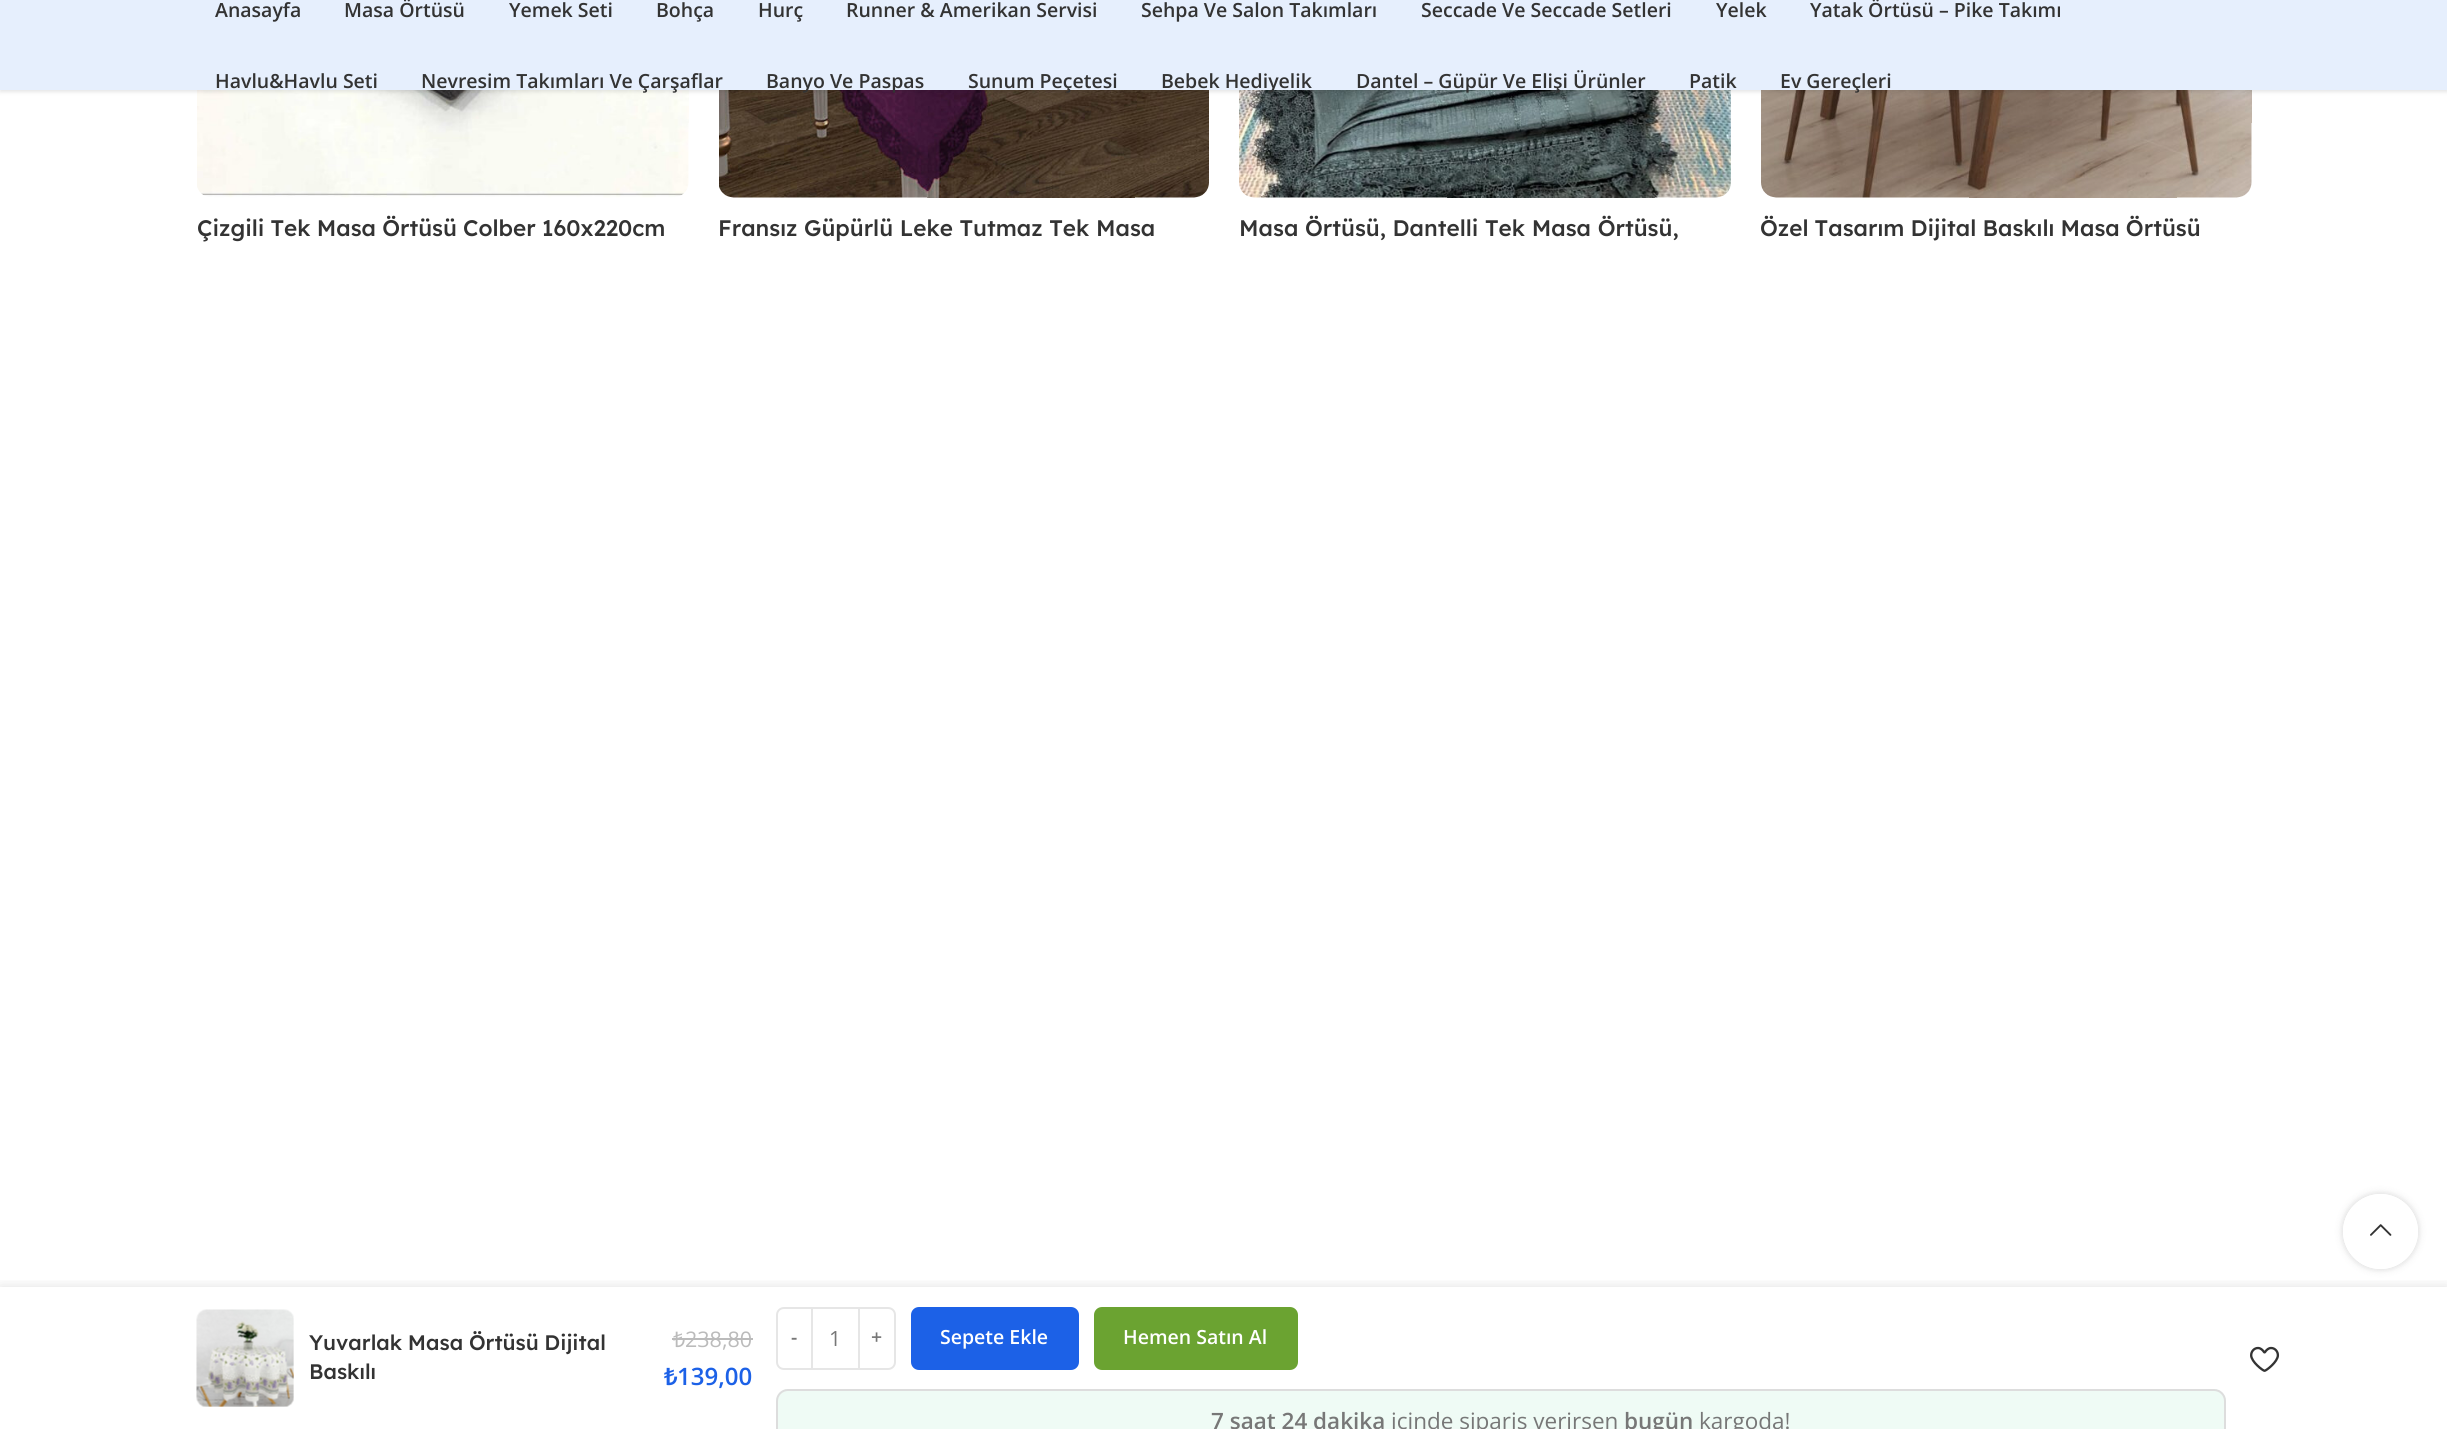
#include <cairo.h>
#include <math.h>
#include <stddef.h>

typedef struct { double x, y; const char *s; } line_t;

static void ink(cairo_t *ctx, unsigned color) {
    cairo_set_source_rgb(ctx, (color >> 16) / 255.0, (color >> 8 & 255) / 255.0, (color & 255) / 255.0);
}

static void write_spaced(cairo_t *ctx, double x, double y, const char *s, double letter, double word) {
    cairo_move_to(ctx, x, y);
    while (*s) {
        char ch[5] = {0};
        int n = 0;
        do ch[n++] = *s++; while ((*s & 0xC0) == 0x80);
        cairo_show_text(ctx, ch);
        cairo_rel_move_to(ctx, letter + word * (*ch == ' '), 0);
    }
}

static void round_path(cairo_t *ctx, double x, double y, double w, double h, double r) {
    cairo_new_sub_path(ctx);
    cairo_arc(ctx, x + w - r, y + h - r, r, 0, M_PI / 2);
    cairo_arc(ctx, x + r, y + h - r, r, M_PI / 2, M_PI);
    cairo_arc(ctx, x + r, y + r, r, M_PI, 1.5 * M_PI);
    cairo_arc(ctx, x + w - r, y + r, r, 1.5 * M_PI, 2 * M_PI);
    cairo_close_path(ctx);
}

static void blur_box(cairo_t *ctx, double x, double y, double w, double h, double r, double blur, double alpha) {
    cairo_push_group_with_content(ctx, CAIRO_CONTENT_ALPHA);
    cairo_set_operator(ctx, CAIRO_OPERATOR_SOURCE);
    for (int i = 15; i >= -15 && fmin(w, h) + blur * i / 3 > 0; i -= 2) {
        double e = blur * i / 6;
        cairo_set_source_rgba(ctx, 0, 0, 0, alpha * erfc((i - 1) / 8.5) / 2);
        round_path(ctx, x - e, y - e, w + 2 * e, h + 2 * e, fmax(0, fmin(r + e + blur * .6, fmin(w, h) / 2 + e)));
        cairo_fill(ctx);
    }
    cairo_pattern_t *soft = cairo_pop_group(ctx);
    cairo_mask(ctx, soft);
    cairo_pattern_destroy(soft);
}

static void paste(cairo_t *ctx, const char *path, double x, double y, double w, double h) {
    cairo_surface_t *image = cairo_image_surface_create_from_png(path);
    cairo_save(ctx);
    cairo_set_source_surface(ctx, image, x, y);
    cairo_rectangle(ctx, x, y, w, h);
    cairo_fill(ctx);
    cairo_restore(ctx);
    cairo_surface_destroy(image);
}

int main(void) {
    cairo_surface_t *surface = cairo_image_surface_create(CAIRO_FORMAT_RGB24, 2447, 1429);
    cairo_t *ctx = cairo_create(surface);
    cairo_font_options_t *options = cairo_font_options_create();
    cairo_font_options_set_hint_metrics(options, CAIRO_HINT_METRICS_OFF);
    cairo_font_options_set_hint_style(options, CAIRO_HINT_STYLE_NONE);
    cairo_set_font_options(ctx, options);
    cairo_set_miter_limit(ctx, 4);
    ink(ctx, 0xFFFFFF);
    cairo_paint(ctx);
    paste(ctx, "media/1.png", 197, 90, 492, 108);
    paste(ctx, "media/2.png", 719, 90, 490, 108);
    paste(ctx, "media/3.png", 1239, 90, 492, 108);
    paste(ctx, "media/4.png", 1761, 90, 491, 108);
    ink(ctx, 0x000000);
    blur_box(ctx, 0, 2, 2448, 90, 0, 2, 0.1);
    ink(ctx, 0xE6EFFD);
    cairo_rectangle(ctx, 0, 0, 2447, 90);
    cairo_fill(ctx);
    cairo_select_font_face(ctx, "Open Sans SemiBold", CAIRO_FONT_SLANT_NORMAL, CAIRO_FONT_WEIGHT_NORMAL);
    cairo_set_font_size(ctx, 19.5);
    ink(ctx, 0x333333);
    {
        static const line_t items[] = {
            {215, 17, "Anasayfa"},
            {344, 17, "Masa Örtüsü"},
            {509, 17, "Yemek Seti"},
            {656, 17, "Bohça"},
            {758, 17, "Hurç"},
            {846, 17, "Runner & Amerikan Servisi"},
            {1141, 17, "Sehpa Ve Salon Takımları"},
            {1421, 17, "Seccade Ve Seccade Setleri"},
            {1716, 17, "Yelek"},
            {1810, 17, "Yatak Örtüsü – Pike Takımı"},
            {215, 88, "Havlu&Havlu Seti"},
            {421, 88, "Nevresim Takımları Ve Çarşaflar"},
            {766, 88, "Banyo Ve Paspas"},
            {968, 88, "Sunum Peçetesi"},
            {1161, 88, "Bebek Hediyelik"},
            {1356, 88, "Dantel – Güpür Ve Elişi Ürünler"},
            {1689, 88, "Patik"},
            {1780, 88, "Ev Gereçleri"},
        };
        for (size_t i = 0; i < sizeof items / sizeof *items; i++) {
            cairo_move_to(ctx, items[i].x, items[i].y);
            cairo_show_text(ctx, items[i].s);
        }
    }
    cairo_select_font_face(ctx, "Lexend Deca Medium", CAIRO_FONT_SLANT_NORMAL, CAIRO_FONT_WEIGHT_NORMAL);
    cairo_set_font_size(ctx, 22.5);
    write_spaced(ctx, 197, 236, "Çizgili Tek Masa Örtüsü Colber 160x220cm", 0, -0.5);
    cairo_move_to(ctx, 718, 236);
    cairo_show_text(ctx, "Fransız Güpürlü Leke Tutmaz Tek Masa");
    cairo_move_to(ctx, 1239, 236);
    cairo_show_text(ctx, "Masa Örtüsü, Dantelli Tek Masa Örtüsü,");
    write_spaced(ctx, 1760, 236, "Özel Tasarım Dijital Baskılı Masa Örtüsü", 0, -0.5);
    cairo_save(ctx);
    cairo_set_fill_rule(ctx, CAIRO_FILL_RULE_EVEN_ODD);
    cairo_new_path(ctx);
    cairo_move_to(ctx, 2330, 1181);
    cairo_line_to(ctx, 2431, 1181);
    cairo_line_to(ctx, 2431, 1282);
    cairo_line_to(ctx, 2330, 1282);
    cairo_close_path(ctx);
    cairo_move_to(ctx, 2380.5, 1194);
    cairo_curve_to(ctx, 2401, 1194, 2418, 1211, 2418, 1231.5);
    cairo_curve_to(ctx, 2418, 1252, 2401, 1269, 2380.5, 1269);
    cairo_curve_to(ctx, 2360, 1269, 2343, 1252, 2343, 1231.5);
    cairo_curve_to(ctx, 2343, 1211, 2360, 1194, 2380.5, 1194);
    cairo_close_path(ctx);
    cairo_clip(ctx);
    ink(ctx, 0x000000);
    blur_box(ctx, 2343, 1194, 75, 75, 37.5, 4, 0.17);
    cairo_restore(ctx);
    cairo_save(ctx);
    cairo_rectangle(ctx, 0, 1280, 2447, 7);
    cairo_clip(ctx);
    ink(ctx, 0x000000);
    blur_box(ctx, 0, 1287, 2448, 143, 0, 7, 0.12);
    cairo_restore(ctx);
    cairo_set_source_rgba(ctx, 1, 1, 1, 0.9);
    cairo_arc(ctx, 2380.5, 1231.5, 37.5, 0, 2 * M_PI);
    cairo_fill(ctx);
    paste(ctx, "media/5.png", 2370, 1224, 22, 12);
    paste(ctx, "media/6.png", 196, 1309, 98, 98);
    cairo_set_font_size(ctx, 21);
    ink(ctx, 0x333333);
    write_spaced(ctx, 309, 1350, "Yuvarlak Masa Örtüsü Dijital", 0, -0.5);
    cairo_move_to(ctx, 309, 1379);
    cairo_show_text(ctx, "Baskılı");
    cairo_select_font_face(ctx, "Noto Sans", CAIRO_FONT_SLANT_NORMAL, CAIRO_FONT_WEIGHT_NORMAL);
    cairo_set_font_size(ctx, 21.5);
    ink(ctx, 0xBBBBBB);
    cairo_move_to(ctx, 673, 1347);
    cairo_show_text(ctx, "₺");
    cairo_rectangle(ctx, 672, 1338, 14, 2);
    cairo_fill(ctx);
    cairo_rectangle(ctx, 686, 1338, 67, 2);
    cairo_fill(ctx);
    cairo_select_font_face(ctx, "Open Sans", CAIRO_FONT_SLANT_NORMAL, CAIRO_FONT_WEIGHT_NORMAL);
    cairo_move_to(ctx, 685, 1347);
    cairo_show_text(ctx, "238,80");
    cairo_select_font_face(ctx, "Noto Sans SemiBold", CAIRO_FONT_SLANT_NORMAL, CAIRO_FONT_WEIGHT_NORMAL);
    cairo_set_font_size(ctx, 24);
    ink(ctx, 0x1C61E7);
    cairo_move_to(ctx, 664, 1385);
    cairo_show_text(ctx, "₺");
    cairo_select_font_face(ctx, "Open Sans SemiBold", CAIRO_FONT_SLANT_NORMAL, CAIRO_FONT_WEIGHT_NORMAL);
    cairo_move_to(ctx, 677, 1385);
    cairo_show_text(ctx, "139,00");
    cairo_new_path(ctx);
    cairo_move_to(ctx, 784, 1308);
    cairo_line_to(ctx, 812, 1308);
    cairo_line_to(ctx, 812, 1369);
    cairo_line_to(ctx, 784, 1369);
    cairo_curve_to(ctx, 780, 1369, 777, 1366, 777, 1362);
    cairo_line_to(ctx, 777, 1315);
    cairo_curve_to(ctx, 777, 1311, 780, 1308, 784, 1308);
    cairo_close_path(ctx);
    ink(ctx, 0xE6E6E6);
    cairo_stroke(ctx);
    cairo_set_font_size(ctx, 19.5);
    ink(ctx, 0x777777);
    cairo_move_to(ctx, 791, 1344);
    cairo_show_text(ctx, "-");
    ink(ctx, 0xE6E6E6);
    cairo_rectangle(ctx, 813, 1307, 45, 2);
    cairo_fill(ctx);
    cairo_rectangle(ctx, 813, 1368, 45, 2);
    cairo_fill(ctx);
    cairo_select_font_face(ctx, "Open Sans", CAIRO_FONT_SLANT_NORMAL, CAIRO_FONT_WEIGHT_NORMAL);
    cairo_set_font_size(ctx, 21);
    ink(ctx, 0x777777);
    cairo_move_to(ctx, 829, 1346);
    cairo_show_text(ctx, "1");
    cairo_new_path(ctx);
    cairo_move_to(ctx, 859, 1308);
    cairo_line_to(ctx, 888, 1308);
    cairo_curve_to(ctx, 892, 1308, 895, 1311, 895, 1315);
    cairo_line_to(ctx, 895, 1362);
    cairo_curve_to(ctx, 895, 1366, 892, 1369, 888, 1369);
    cairo_line_to(ctx, 859, 1369);
    cairo_close_path(ctx);
    ink(ctx, 0xE6E6E6);
    cairo_stroke(ctx);
    cairo_select_font_face(ctx, "Open Sans SemiBold", CAIRO_FONT_SLANT_NORMAL, CAIRO_FONT_WEIGHT_NORMAL);
    cairo_set_font_size(ctx, 19.5);
    ink(ctx, 0x777777);
    cairo_move_to(ctx, 871, 1344);
    cairo_show_text(ctx, "+");
    ink(ctx, 0x1C61E7);
    round_path(ctx, 911, 1307, 168, 63, 8);
    cairo_fill(ctx);
    ink(ctx, 0xFFFFFF);
    cairo_move_to(ctx, 940, 1344);
    cairo_show_text(ctx, "Sepete Ekle");
    ink(ctx, 0x6BA331);
    round_path(ctx, 1094, 1307, 204, 63, 8);
    cairo_fill(ctx);
    ink(ctx, 0xFFFFFF);
    cairo_move_to(ctx, 1123, 1344);
    cairo_show_text(ctx, "Hemen Satın Al");
    ink(ctx, 0xEFFBF5);
    cairo_new_path(ctx);
    cairo_move_to(ctx, 788, 1389);
    cairo_line_to(ctx, 2214, 1389);
    cairo_curve_to(ctx, 2220.5, 1389, 2226, 1394.5, 2226, 1401);
    cairo_line_to(ctx, 2226, 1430);
    cairo_line_to(ctx, 776, 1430);
    cairo_line_to(ctx, 776, 1401);
    cairo_curve_to(ctx, 776, 1394.5, 781.5, 1389, 788, 1389);
    cairo_close_path(ctx);
    cairo_fill(ctx);
    round_path(ctx, 777, 1390, 1448, 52, 11);
    ink(ctx, 0xDDDDDD);
    cairo_stroke(ctx);
    cairo_set_font_size(ctx, 22.5);
    ink(ctx, 0x777777);
    cairo_move_to(ctx, 1211, 1429);
    cairo_show_text(ctx, "7 saat 24 dakika");
    cairo_select_font_face(ctx, "Open Sans", CAIRO_FONT_SLANT_NORMAL, CAIRO_FONT_WEIGHT_NORMAL);
    cairo_move_to(ctx, 1391, 1429);
    cairo_show_text(ctx, "içinde sipariş verirsen");
    cairo_select_font_face(ctx, "Open Sans SemiBold", CAIRO_FONT_SLANT_NORMAL, CAIRO_FONT_WEIGHT_NORMAL);
    cairo_move_to(ctx, 1624, 1429);
    cairo_show_text(ctx, "bugün");
    cairo_select_font_face(ctx, "Open Sans", CAIRO_FONT_SLANT_NORMAL, CAIRO_FONT_WEIGHT_NORMAL);
    cairo_move_to(ctx, 1699, 1429);
    cairo_show_text(ctx, "kargoda!");
    paste(ctx, "media/7.png", 2250, 1346, 30, 26);
    cairo_surface_write_to_png(surface, "image.png");
    cairo_font_options_destroy(options);
    cairo_destroy(ctx);
    cairo_surface_destroy(surface);
    return 0;
}
